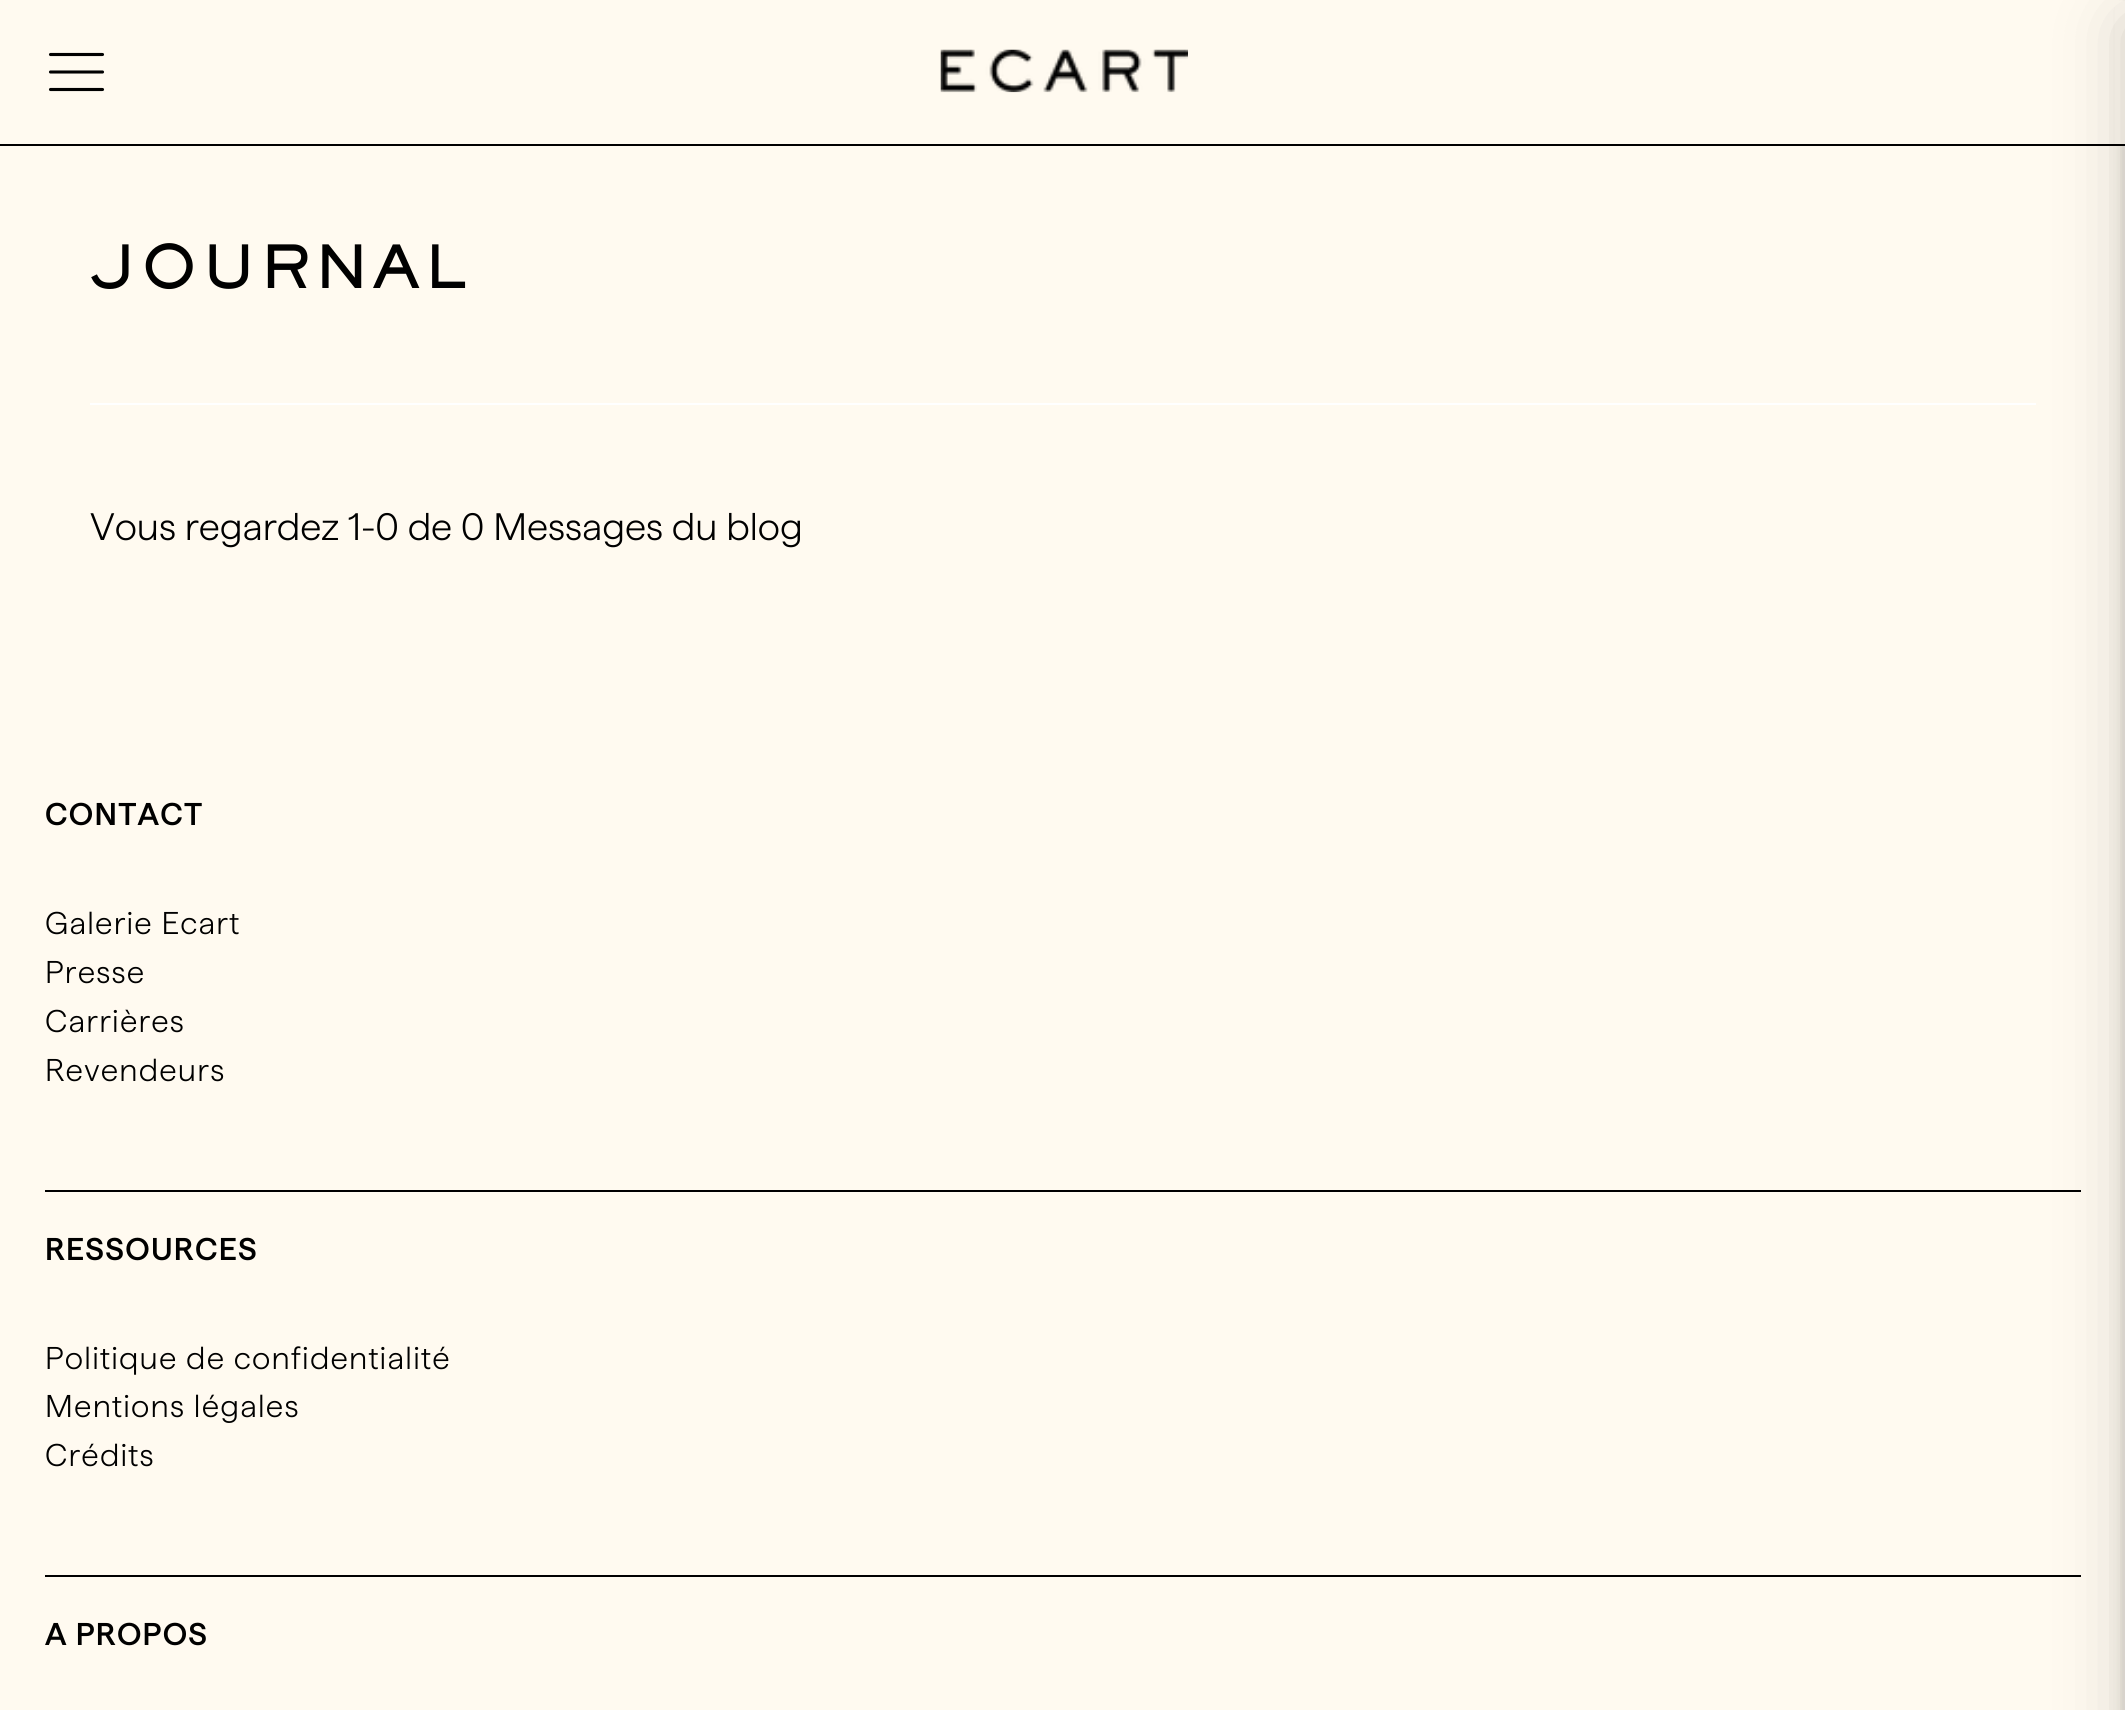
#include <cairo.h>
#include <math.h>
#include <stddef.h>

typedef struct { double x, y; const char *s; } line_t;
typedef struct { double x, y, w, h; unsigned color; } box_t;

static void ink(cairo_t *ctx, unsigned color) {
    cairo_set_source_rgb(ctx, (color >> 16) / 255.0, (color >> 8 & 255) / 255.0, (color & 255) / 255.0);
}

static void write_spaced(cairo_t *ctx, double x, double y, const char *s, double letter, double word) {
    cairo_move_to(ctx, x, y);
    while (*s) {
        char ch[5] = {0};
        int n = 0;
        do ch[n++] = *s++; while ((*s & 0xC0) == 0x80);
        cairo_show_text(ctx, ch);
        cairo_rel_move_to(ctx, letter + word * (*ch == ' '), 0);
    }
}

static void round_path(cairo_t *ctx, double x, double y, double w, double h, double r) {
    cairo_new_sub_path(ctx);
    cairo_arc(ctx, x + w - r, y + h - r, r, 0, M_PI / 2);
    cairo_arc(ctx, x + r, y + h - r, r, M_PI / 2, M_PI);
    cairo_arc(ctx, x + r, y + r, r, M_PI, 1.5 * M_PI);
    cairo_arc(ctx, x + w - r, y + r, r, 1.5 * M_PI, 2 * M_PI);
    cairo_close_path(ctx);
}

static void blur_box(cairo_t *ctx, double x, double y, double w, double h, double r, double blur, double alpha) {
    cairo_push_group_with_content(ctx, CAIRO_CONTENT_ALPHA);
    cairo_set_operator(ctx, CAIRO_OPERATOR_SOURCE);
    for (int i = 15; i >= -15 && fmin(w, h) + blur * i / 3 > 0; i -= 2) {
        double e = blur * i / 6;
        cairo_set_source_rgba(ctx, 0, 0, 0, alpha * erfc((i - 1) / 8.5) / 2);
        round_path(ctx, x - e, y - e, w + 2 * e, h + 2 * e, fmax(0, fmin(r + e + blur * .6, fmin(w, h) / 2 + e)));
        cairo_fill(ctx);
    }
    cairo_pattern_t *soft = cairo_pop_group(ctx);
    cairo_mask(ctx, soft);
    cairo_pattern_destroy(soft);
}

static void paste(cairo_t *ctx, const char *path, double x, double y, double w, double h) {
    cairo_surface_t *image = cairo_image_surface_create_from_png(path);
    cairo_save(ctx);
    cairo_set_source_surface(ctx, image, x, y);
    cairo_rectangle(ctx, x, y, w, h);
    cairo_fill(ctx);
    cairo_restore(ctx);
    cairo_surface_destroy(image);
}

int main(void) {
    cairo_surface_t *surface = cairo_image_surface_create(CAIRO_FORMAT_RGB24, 2125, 1710);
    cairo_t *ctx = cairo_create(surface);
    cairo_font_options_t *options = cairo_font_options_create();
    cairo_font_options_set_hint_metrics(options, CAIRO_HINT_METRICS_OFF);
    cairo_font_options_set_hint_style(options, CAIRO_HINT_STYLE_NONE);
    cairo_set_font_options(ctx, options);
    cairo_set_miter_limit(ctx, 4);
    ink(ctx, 0xFFFAF0);
    cairo_paint(ctx);
    ink(ctx, 0x000000);
    blur_box(ctx, 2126, 9, 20, 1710, 0, 7, 0.1);
    blur_box(ctx, 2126, 9, 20, 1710, 0, 7, 0.1);
    {
        static const box_t items[] = {
            {2115, 1, 10, 143, 0xFFFAF0},
            {0, 144, 2125, 2, 0x000000},
            {90, 403, 1946, 2, 0xFFFFFF},
            {45, 1190, 2036, 2, 0x000000},
            {45, 1575, 2036, 2, 0x000000},
        };
        for (size_t i = 0; i < sizeof items / sizeof *items; i++) {
            ink(ctx, items[i].color);
            cairo_rectangle(ctx, items[i].x, items[i].y, items[i].w, items[i].h);
            cairo_fill(ctx);
        }
    }
    ink(ctx, 0x000000);
    blur_box(ctx, 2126, 23, 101, 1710, 0, 34, 0.18);
    cairo_new_path(ctx);
    cairo_move_to(ctx, 50.5, 72);
    cairo_line_to(ctx, 102.5, 72);
    cairo_move_to(ctx, 50.5, 54.5);
    cairo_line_to(ctx, 102.5, 54.5);
    cairo_move_to(ctx, 50.5, 89.5);
    cairo_line_to(ctx, 102.5, 89.5);
    ink(ctx, 0x000000);
    cairo_set_line_width(ctx, 3.1);
    cairo_set_line_cap(ctx, CAIRO_LINE_CAP_ROUND);
    cairo_set_line_join(ctx, CAIRO_LINE_JOIN_ROUND);
    cairo_stroke(ctx);
    paste(ctx, "media/1.png", 940, 49, 248, 44);
    cairo_select_font_face(ctx, "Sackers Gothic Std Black", CAIRO_FONT_SLANT_NORMAL, CAIRO_FONT_WEIGHT_NORMAL);
    cairo_set_font_size(ctx, 58.5);
    write_spaced(ctx, 90, 288, "JOURNAL", 2.25, 0);
    cairo_select_font_face(ctx, "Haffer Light", CAIRO_FONT_SLANT_NORMAL, CAIRO_FONT_WEIGHT_NORMAL);
    cairo_set_font_size(ctx, 38.25);
    cairo_move_to(ctx, 90, 540);
    cairo_show_text(ctx, "Vous regardez 1-0 de 0 Messages du blog");
    cairo_select_font_face(ctx, "Haffer Medium", CAIRO_FONT_SLANT_NORMAL, CAIRO_FONT_WEIGHT_NORMAL);
    cairo_set_font_size(ctx, 31.5);
    write_spaced(ctx, 45, 825, "CONTACT", 1.25, 0);
    cairo_select_font_face(ctx, "Haffer Light", CAIRO_FONT_SLANT_NORMAL, CAIRO_FONT_WEIGHT_NORMAL);
    {
        static const line_t items[] = {
            {45, 934, "Galerie Ecart"},
            {45, 983, "Presse"},
            {45, 1032, "Carrières"},
            {45, 1081, "Revendeurs"},
        };
        for (size_t i = 0; i < sizeof items / sizeof *items; i++) {
            write_spaced(ctx, items[i].x, items[i].y, items[i].s, 1.25, 0);
        }
    }
    cairo_select_font_face(ctx, "Haffer Medium", CAIRO_FONT_SLANT_NORMAL, CAIRO_FONT_WEIGHT_NORMAL);
    write_spaced(ctx, 45, 1260, "RESSOURCES", 1.25, 0);
    cairo_select_font_face(ctx, "Haffer Light", CAIRO_FONT_SLANT_NORMAL, CAIRO_FONT_WEIGHT_NORMAL);
    {
        static const line_t items[] = {
            {45, 1369, "Politique de confidentialité"},
            {45, 1417, "Mentions légales"},
            {45, 1466, "Crédits"},
        };
        for (size_t i = 0; i < sizeof items / sizeof *items; i++) {
            write_spaced(ctx, items[i].x, items[i].y, items[i].s, 1.25, 0);
        }
    }
    cairo_select_font_face(ctx, "Haffer Medium", CAIRO_FONT_SLANT_NORMAL, CAIRO_FONT_WEIGHT_NORMAL);
    write_spaced(ctx, 45, 1645, "A PROPOS", 1.25, 0);
    cairo_surface_write_to_png(surface, "image.png");
    cairo_font_options_destroy(options);
    cairo_destroy(ctx);
    cairo_surface_destroy(surface);
    return 0;
}
